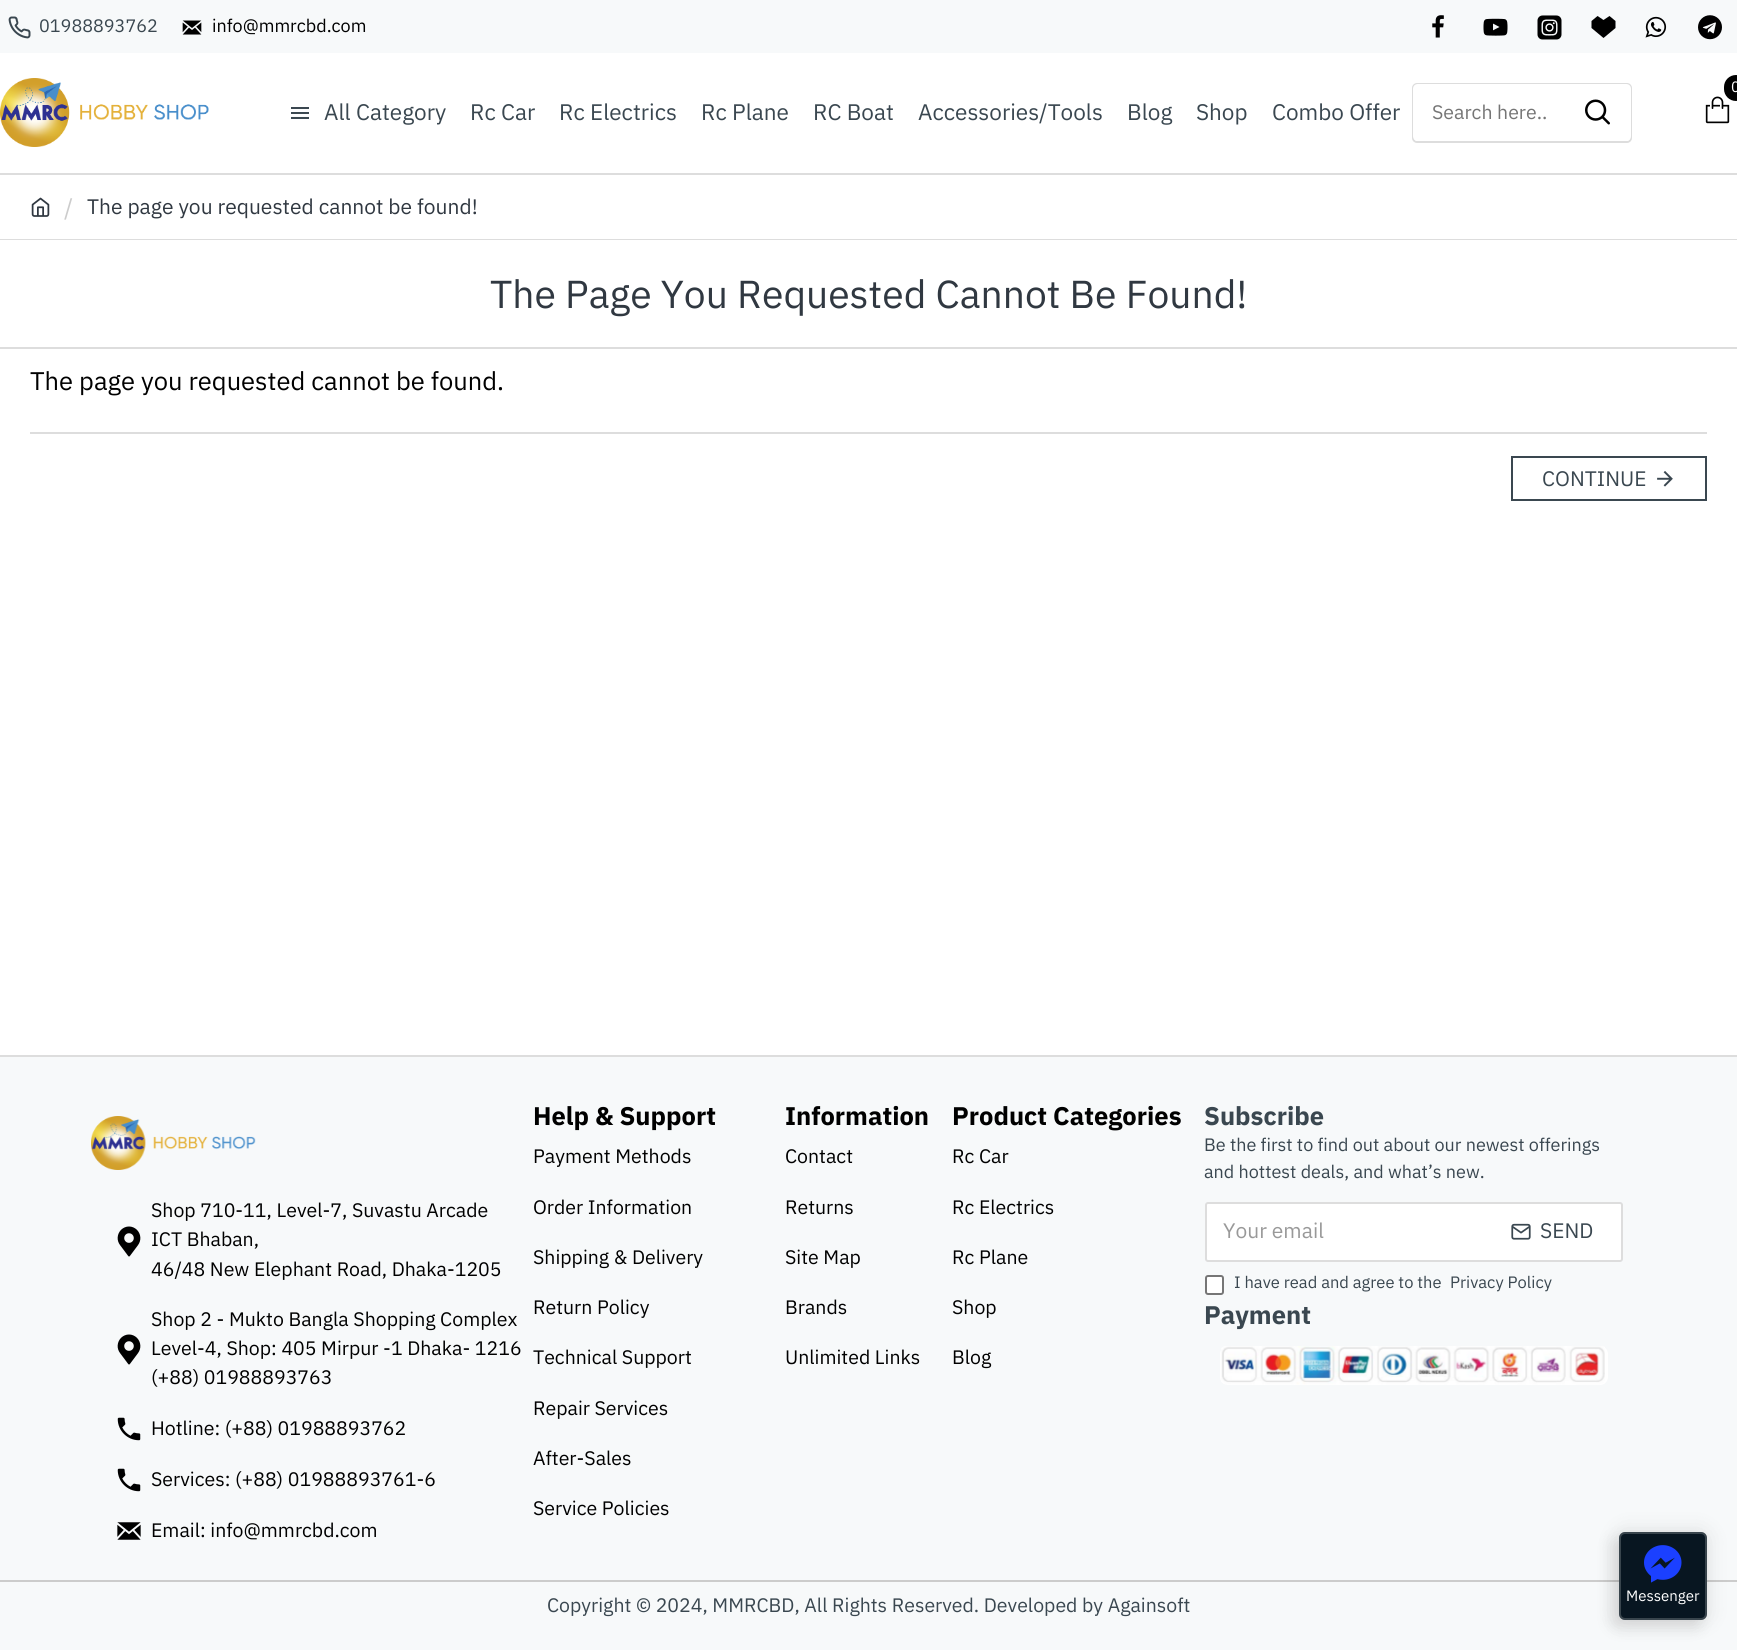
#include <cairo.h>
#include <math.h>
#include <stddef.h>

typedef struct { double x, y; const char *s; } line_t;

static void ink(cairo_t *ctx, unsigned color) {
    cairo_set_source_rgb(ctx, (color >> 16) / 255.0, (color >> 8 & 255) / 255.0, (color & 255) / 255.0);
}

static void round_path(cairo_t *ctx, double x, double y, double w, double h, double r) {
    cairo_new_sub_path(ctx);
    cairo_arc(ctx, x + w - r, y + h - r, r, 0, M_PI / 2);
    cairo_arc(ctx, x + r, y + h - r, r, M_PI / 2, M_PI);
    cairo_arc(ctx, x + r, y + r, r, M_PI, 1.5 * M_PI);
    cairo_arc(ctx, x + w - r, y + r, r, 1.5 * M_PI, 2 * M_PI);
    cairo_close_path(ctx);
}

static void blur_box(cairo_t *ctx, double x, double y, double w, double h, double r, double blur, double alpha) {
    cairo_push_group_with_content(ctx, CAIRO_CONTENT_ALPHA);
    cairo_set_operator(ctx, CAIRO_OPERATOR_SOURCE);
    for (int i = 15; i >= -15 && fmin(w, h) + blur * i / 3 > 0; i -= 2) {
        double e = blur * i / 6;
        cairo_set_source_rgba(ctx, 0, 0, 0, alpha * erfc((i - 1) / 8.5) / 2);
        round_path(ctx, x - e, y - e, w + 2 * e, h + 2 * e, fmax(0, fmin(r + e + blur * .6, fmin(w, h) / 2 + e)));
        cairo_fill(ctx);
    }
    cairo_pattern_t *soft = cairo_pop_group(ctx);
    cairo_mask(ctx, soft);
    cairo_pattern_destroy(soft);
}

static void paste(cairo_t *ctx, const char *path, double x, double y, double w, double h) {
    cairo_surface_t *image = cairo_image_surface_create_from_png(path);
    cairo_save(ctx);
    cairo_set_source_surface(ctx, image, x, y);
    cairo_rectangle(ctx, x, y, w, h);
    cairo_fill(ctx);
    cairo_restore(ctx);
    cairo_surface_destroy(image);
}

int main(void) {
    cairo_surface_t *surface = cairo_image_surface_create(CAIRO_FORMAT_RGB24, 1737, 1650);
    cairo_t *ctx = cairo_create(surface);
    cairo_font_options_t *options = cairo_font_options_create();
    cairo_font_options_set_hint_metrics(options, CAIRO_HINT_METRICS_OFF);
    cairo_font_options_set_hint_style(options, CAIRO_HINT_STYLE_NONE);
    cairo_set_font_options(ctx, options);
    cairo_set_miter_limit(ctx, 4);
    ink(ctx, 0xFFFFFF);
    cairo_paint(ctx);
    ink(ctx, 0xDDDDDD);
    cairo_rectangle(ctx, 0, 173, 1737, 2);
    cairo_fill(ctx);
    ink(ctx, 0xF7F9FA);
    cairo_rectangle(ctx, 0, 0, 1737, 53);
    cairo_fill(ctx);
    paste(ctx, "media/1.png", 8, 16, 23, 23);
    cairo_select_font_face(ctx, "IBM Plex Sans", CAIRO_FONT_SLANT_NORMAL, CAIRO_FONT_WEIGHT_NORMAL);
    cairo_set_font_size(ctx, 18);
    ink(ctx, 0x3A4750);
    cairo_move_to(ctx, 39, 32);
    cairo_show_text(ctx, "01988893762");
    paste(ctx, "media/2.png", 182, 20, 20, 15);
    ink(ctx, 0x000000);
    cairo_move_to(ctx, 212, 32);
    cairo_show_text(ctx, "info@mmrcbd.com");
    paste(ctx, "media/3.png", 1432, 15, 12, 23);
    paste(ctx, "media/4.png", 1483, 18, 25, 18);
    paste(ctx, "media/5.png", 1537, 15, 25, 25);
    cairo_new_path(ctx);
    cairo_move_to(ctx, 1609.5, 16);
    cairo_line_to(ctx, 1603.5, 20);
    cairo_line_to(ctx, 1597.5, 16);
    cairo_line_to(ctx, 1591.5, 21);
    cairo_line_to(ctx, 1591.5, 28);
    cairo_line_to(ctx, 1603.5, 38);
    cairo_line_to(ctx, 1615.5, 28);
    cairo_line_to(ctx, 1615.5, 21);
    cairo_close_path(ctx);
    cairo_fill(ctx);
    paste(ctx, "media/6.png", 1645, 16, 22, 22);
    paste(ctx, "media/7.png", 1698, 15, 24, 25);
    paste(ctx, "media/8.png", 0, 78, 209, 69);
    paste(ctx, "media/9.png", 1705, 96, 25, 28);
    round_path(ctx, 1724, 75, 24, 26, 12);
    cairo_fill(ctx);
    cairo_set_font_size(ctx, 15);
    ink(ctx, 0xFFFFFF);
    cairo_move_to(ctx, 1731, 92);
    cairo_show_text(ctx, "0");
    paste(ctx, "media/10.png", 291, 107, 18, 12);
    cairo_set_font_size(ctx, 22.5);
    ink(ctx, 0x3A4750);
    {
        static const line_t items[] = {
            {324, 120, "All Category"},
            {470, 120, "Rc Car"},
            {559, 120, "Rc Electrics"},
            {701, 120, "Rc Plane"},
            {813, 120, "RC Boat"},
            {918, 120, "Accessories/Tools"},
            {1127, 120, "Blog"},
            {1196, 120, "Shop"},
            {1272, 120, "Combo Offer"},
        };
        for (size_t i = 0; i < sizeof items / sizeof *items; i++) {
            cairo_move_to(ctx, items[i].x, items[i].y);
            cairo_show_text(ctx, items[i].s);
        }
    }
    round_path(ctx, 1413, 84, 218, 58, 4);
    ink(ctx, 0xDDDDDD);
    cairo_stroke(ctx);
    ink(ctx, 0xFFFFFF);
    cairo_new_path(ctx);
    cairo_move_to(ctx, 1418, 84);
    cairo_line_to(ctx, 1563, 84);
    cairo_line_to(ctx, 1563, 141);
    cairo_line_to(ctx, 1418, 141);
    cairo_curve_to(ctx, 1415, 141, 1413, 139, 1413, 136);
    cairo_line_to(ctx, 1413, 89);
    cairo_curve_to(ctx, 1413, 86, 1415, 84, 1418, 84);
    cairo_close_path(ctx);
    cairo_fill(ctx);
    cairo_set_font_size(ctx, 19.5);
    ink(ctx, 0x757575);
    cairo_move_to(ctx, 1432, 119);
    cairo_show_text(ctx, "Search here..");
    ink(ctx, 0xFFFFFF);
    cairo_new_path(ctx);
    cairo_move_to(ctx, 1563, 84);
    cairo_line_to(ctx, 1626, 84);
    cairo_curve_to(ctx, 1629, 84, 1631, 86, 1631, 89);
    cairo_line_to(ctx, 1631, 136);
    cairo_curve_to(ctx, 1631, 139, 1629, 141, 1626, 141);
    cairo_line_to(ctx, 1563, 141);
    cairo_close_path(ctx);
    cairo_fill(ctx);
    paste(ctx, "media/11.png", 1585, 99, 25, 26);
    paste(ctx, "media/12.png", 31, 197, 19, 20);
    cairo_set_font_size(ctx, 24);
    ink(ctx, 0xCCCCCC);
    cairo_move_to(ctx, 64, 216);
    cairo_show_text(ctx, "/");
    cairo_set_font_size(ctx, 21);
    ink(ctx, 0x303841);
    cairo_move_to(ctx, 87, 214);
    cairo_show_text(ctx, "The page you requested cannot be found!");
    ink(ctx, 0xDDDDDD);
    cairo_rectangle(ctx, 0, 239, 1737, 1);
    cairo_fill(ctx);
    cairo_rectangle(ctx, 0, 347, 1737, 2);
    cairo_fill(ctx);
    cairo_set_font_size(ctx, 39);
    ink(ctx, 0x303841);
    cairo_move_to(ctx, 490, 308);
    cairo_show_text(ctx, "The Page You Requested Cannot Be Found!");
    cairo_set_font_size(ctx, 25.5);
    ink(ctx, 0x000000);
    cairo_move_to(ctx, 30, 390);
    cairo_show_text(ctx, "The page you requested cannot be found.");
    ink(ctx, 0xDDDDDD);
    cairo_rectangle(ctx, 30, 432, 1677, 2);
    cairo_fill(ctx);
    cairo_rectangle(ctx, 1512, 457, 194, 43);
    ink(ctx, 0x3A4750);
    cairo_stroke(ctx);
    cairo_set_font_size(ctx, 21);
    cairo_move_to(ctx, 1542, 486);
    cairo_show_text(ctx, "CONTINUE");
    paste(ctx, "media/13.png", 1657, 471, 16, 16);
    ink(ctx, 0xF7F9FA);
    cairo_rectangle(ctx, 0, 1057, 1737, 593);
    cairo_fill(ctx);
    ink(ctx, 0xDDDDDD);
    cairo_rectangle(ctx, 0, 1055, 1737, 2);
    cairo_fill(ctx);
    paste(ctx, "media/14.png", 91, 1116, 165, 54);
    paste(ctx, "media/15.png", 117, 1226, 24, 31);
    cairo_set_font_size(ctx, 19.5);
    ink(ctx, 0x000000);
    {
        static const line_t items[] = {
            {151, 1217, "Shop 710-11, Level-7, Suvastu Arcade"},
            {151, 1246, "ICT Bhaban,"},
            {151, 1276, "46/48 New Elephant Road, Dhaka-1205"},
        };
        for (size_t i = 0; i < sizeof items / sizeof *items; i++) {
            cairo_move_to(ctx, items[i].x, items[i].y);
            cairo_show_text(ctx, items[i].s);
        }
    }
    paste(ctx, "media/15.png", 117, 1334, 24, 31);
    {
        static const line_t items[] = {
            {151, 1326, "Shop 2 - Mukto Bangla Shopping Complex"},
            {151, 1355, "Level-4, Shop: 405 Mirpur -1 Dhaka- 1216"},
            {151, 1384, "(+88) 01988893763"},
        };
        for (size_t i = 0; i < sizeof items / sizeof *items; i++) {
            cairo_move_to(ctx, items[i].x, items[i].y);
            cairo_show_text(ctx, items[i].s);
        }
    }
    paste(ctx, "media/16.png", 117, 1417, 24, 24);
    cairo_move_to(ctx, 151, 1435);
    cairo_show_text(ctx, "Hotline: (+88) 01988893762");
    paste(ctx, "media/16.png", 117, 1468, 24, 24);
    cairo_move_to(ctx, 151, 1486);
    cairo_show_text(ctx, "Services: (+88) 01988893761-6");
    paste(ctx, "media/17.png", 117, 1522, 24, 18);
    cairo_move_to(ctx, 151, 1537);
    cairo_show_text(ctx, "Email: info@mmrcbd.com");
    cairo_select_font_face(ctx, "IBM Plex Sans", CAIRO_FONT_SLANT_NORMAL, CAIRO_FONT_WEIGHT_BOLD);
    cairo_set_font_size(ctx, 25.5);
    cairo_move_to(ctx, 533, 1125);
    cairo_show_text(ctx, "Help & Support");
    cairo_select_font_face(ctx, "IBM Plex Sans", CAIRO_FONT_SLANT_NORMAL, CAIRO_FONT_WEIGHT_NORMAL);
    cairo_set_font_size(ctx, 19.5);
    {
        static const line_t items[] = {
            {533, 1163, "Payment Methods"},
            {533, 1214, "Order Information"},
            {533, 1264, "Shipping & Delivery"},
            {533, 1314, "Return Policy"},
            {533, 1364, "Technical Support"},
            {533, 1415, "Repair Services"},
            {533, 1465, "After-Sales"},
            {533, 1515, "Service Policies"},
        };
        for (size_t i = 0; i < sizeof items / sizeof *items; i++) {
            cairo_move_to(ctx, items[i].x, items[i].y);
            cairo_show_text(ctx, items[i].s);
        }
    }
    cairo_select_font_face(ctx, "IBM Plex Sans", CAIRO_FONT_SLANT_NORMAL, CAIRO_FONT_WEIGHT_BOLD);
    cairo_set_font_size(ctx, 25.5);
    cairo_move_to(ctx, 785, 1125);
    cairo_show_text(ctx, "Information");
    cairo_select_font_face(ctx, "IBM Plex Sans", CAIRO_FONT_SLANT_NORMAL, CAIRO_FONT_WEIGHT_NORMAL);
    cairo_set_font_size(ctx, 19.5);
    {
        static const line_t items[] = {
            {785, 1163, "Contact"},
            {785, 1214, "Returns"},
            {785, 1264, "Site Map"},
            {785, 1314, "Brands"},
            {785, 1364, "Unlimited Links"},
        };
        for (size_t i = 0; i < sizeof items / sizeof *items; i++) {
            cairo_move_to(ctx, items[i].x, items[i].y);
            cairo_show_text(ctx, items[i].s);
        }
    }
    cairo_select_font_face(ctx, "IBM Plex Sans", CAIRO_FONT_SLANT_NORMAL, CAIRO_FONT_WEIGHT_BOLD);
    cairo_set_font_size(ctx, 25.5);
    cairo_move_to(ctx, 952, 1125);
    cairo_show_text(ctx, "Product Categories");
    cairo_select_font_face(ctx, "IBM Plex Sans", CAIRO_FONT_SLANT_NORMAL, CAIRO_FONT_WEIGHT_NORMAL);
    cairo_set_font_size(ctx, 19.5);
    {
        static const line_t items[] = {
            {952, 1163, "Rc Car"},
            {952, 1214, "Rc Electrics"},
            {952, 1264, "Rc Plane"},
            {952, 1314, "Shop"},
            {952, 1364, "Blog"},
        };
        for (size_t i = 0; i < sizeof items / sizeof *items; i++) {
            cairo_move_to(ctx, items[i].x, items[i].y);
            cairo_show_text(ctx, items[i].s);
        }
    }
    cairo_select_font_face(ctx, "IBM Plex Sans", CAIRO_FONT_SLANT_NORMAL, CAIRO_FONT_WEIGHT_BOLD);
    cairo_set_font_size(ctx, 25.5);
    ink(ctx, 0x3A4750);
    cairo_move_to(ctx, 1204, 1125);
    cairo_show_text(ctx, "Subscribe");
    cairo_select_font_face(ctx, "IBM Plex Sans", CAIRO_FONT_SLANT_NORMAL, CAIRO_FONT_WEIGHT_NORMAL);
    cairo_set_font_size(ctx, 18);
    cairo_move_to(ctx, 1204, 1151);
    cairo_show_text(ctx, "Be the first to find out about our newest offerings");
    cairo_move_to(ctx, 1204, 1178);
    cairo_show_text(ctx, "and hottest deals, and what’s new.");
    ink(ctx, 0xFFFFFF);
    round_path(ctx, 1206, 1203, 416, 58, 2);
    cairo_fill_preserve(ctx);
    ink(ctx, 0xDDDDDD);
    cairo_stroke(ctx);
    cairo_set_font_size(ctx, 21);
    ink(ctx, 0x999999);
    cairo_move_to(ctx, 1223, 1238);
    cairo_show_text(ctx, "Your email");
    paste(ctx, "media/18.png", 1511, 1223, 20, 17);
    ink(ctx, 0x3A4750);
    cairo_move_to(ctx, 1540, 1238);
    cairo_show_text(ctx, "SEND");
    ink(ctx, 0xFFFFFF);
    round_path(ctx, 1206, 1276, 17, 18, 2);
    cairo_fill_preserve(ctx);
    ink(ctx, 0x767676);
    cairo_stroke(ctx);
    cairo_set_font_size(ctx, 16.5);
    ink(ctx, 0x3A4750);
    cairo_move_to(ctx, 1234, 1288);
    cairo_show_text(ctx, "I have read and agree to the");
    cairo_move_to(ctx, 1450, 1288);
    cairo_show_text(ctx, "Privacy Policy");
    cairo_select_font_face(ctx, "IBM Plex Sans", CAIRO_FONT_SLANT_NORMAL, CAIRO_FONT_WEIGHT_BOLD);
    cairo_set_font_size(ctx, 25.5);
    cairo_move_to(ctx, 1204, 1324);
    cairo_show_text(ctx, "Payment");
    ink(ctx, 0xFFFFFF);
    round_path(ctx, 1220, 1346, 388, 39, 8);
    cairo_fill(ctx);
    paste(ctx, "media/19.png", 1221, 1346, 384, 39);
    ink(ctx, 0xCCCCCC);
    cairo_rectangle(ctx, 0, 1580, 1737, 2);
    cairo_fill(ctx);
    cairo_select_font_face(ctx, "IBM Plex Sans", CAIRO_FONT_SLANT_NORMAL, CAIRO_FONT_WEIGHT_NORMAL);
    cairo_set_font_size(ctx, 19.5);
    ink(ctx, 0x3A4750);
    cairo_move_to(ctx, 547, 1612);
    cairo_show_text(ctx, "Copyright © 2024, MMRCBD, All Rights Reserved. Developed by Againsoft");
    ink(ctx, 0x000000);
    blur_box(ctx, 1611, 1539, 89, 89, 6, 7.5, 0.1);
    blur_box(ctx, 1619, 1532, 88, 88, 6, 11, 0.1);
    ink(ctx, 0x081621);
    round_path(ctx, 1619, 1532, 88, 88, 6);
    cairo_fill(ctx);
    round_path(ctx, 1620, 1533, 86, 86, 5);
    cairo_set_source_rgba(ctx, 1, 1, 1, 0.2);
    cairo_stroke(ctx);
    paste(ctx, "media/20.png", 1644, 1545, 38, 38);
    cairo_set_font_size(ctx, 15);
    ink(ctx, 0xFFFFFF);
    cairo_move_to(ctx, 1626, 1601);
    cairo_show_text(ctx, "Messenger");
    cairo_surface_write_to_png(surface, "image.png");
    cairo_font_options_destroy(options);
    cairo_destroy(ctx);
    cairo_surface_destroy(surface);
    return 0;
}
